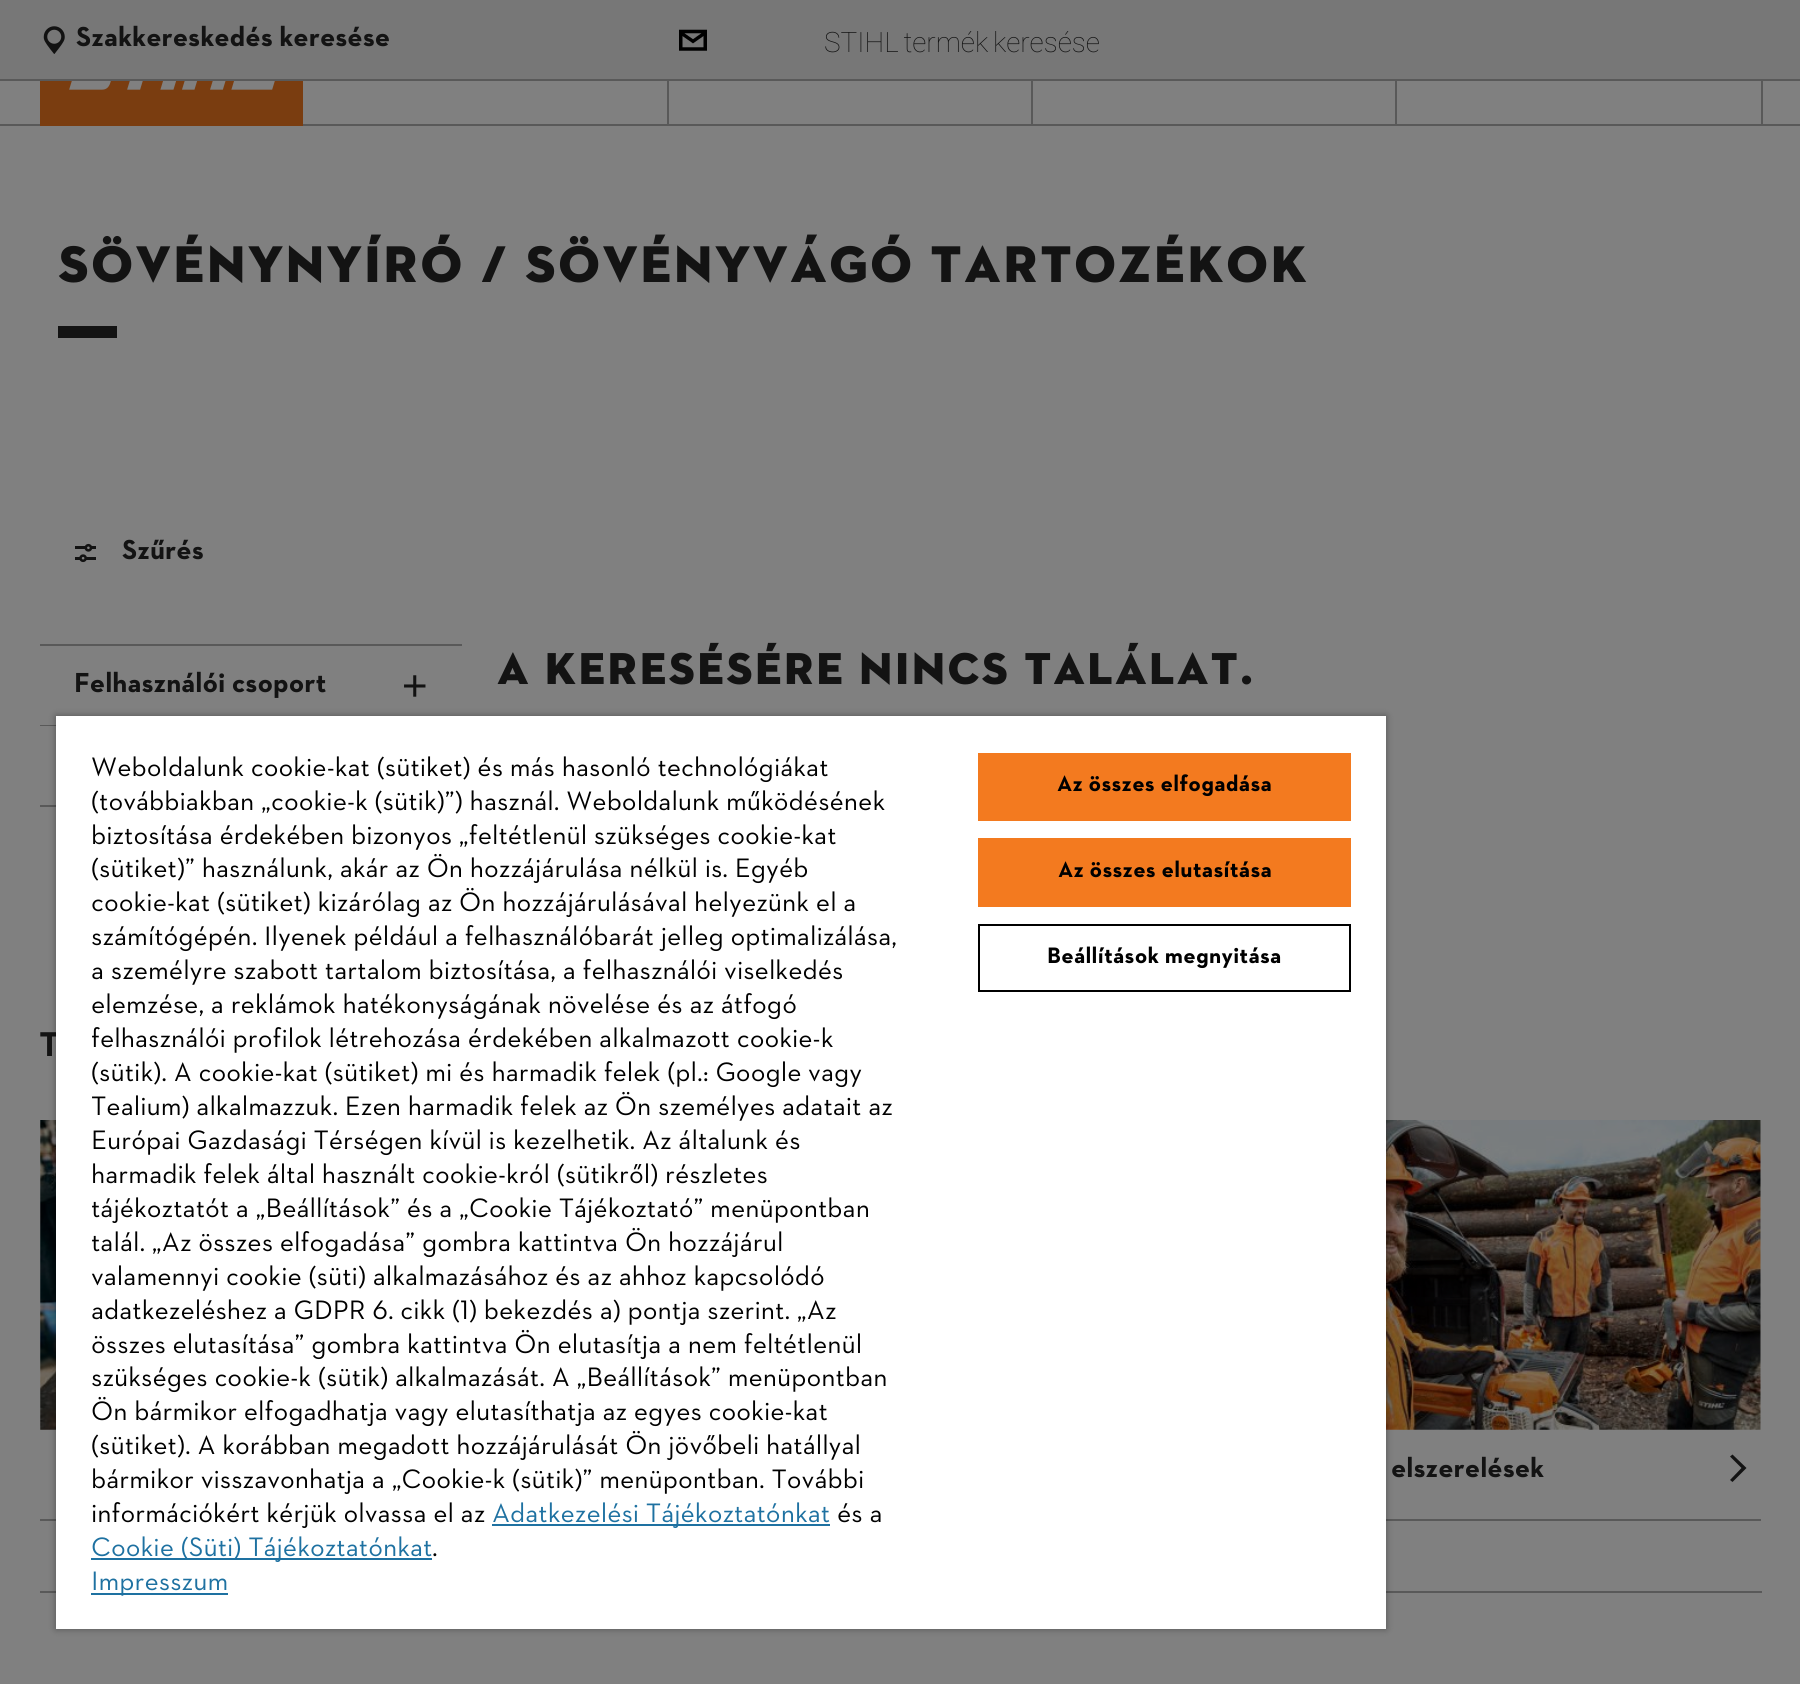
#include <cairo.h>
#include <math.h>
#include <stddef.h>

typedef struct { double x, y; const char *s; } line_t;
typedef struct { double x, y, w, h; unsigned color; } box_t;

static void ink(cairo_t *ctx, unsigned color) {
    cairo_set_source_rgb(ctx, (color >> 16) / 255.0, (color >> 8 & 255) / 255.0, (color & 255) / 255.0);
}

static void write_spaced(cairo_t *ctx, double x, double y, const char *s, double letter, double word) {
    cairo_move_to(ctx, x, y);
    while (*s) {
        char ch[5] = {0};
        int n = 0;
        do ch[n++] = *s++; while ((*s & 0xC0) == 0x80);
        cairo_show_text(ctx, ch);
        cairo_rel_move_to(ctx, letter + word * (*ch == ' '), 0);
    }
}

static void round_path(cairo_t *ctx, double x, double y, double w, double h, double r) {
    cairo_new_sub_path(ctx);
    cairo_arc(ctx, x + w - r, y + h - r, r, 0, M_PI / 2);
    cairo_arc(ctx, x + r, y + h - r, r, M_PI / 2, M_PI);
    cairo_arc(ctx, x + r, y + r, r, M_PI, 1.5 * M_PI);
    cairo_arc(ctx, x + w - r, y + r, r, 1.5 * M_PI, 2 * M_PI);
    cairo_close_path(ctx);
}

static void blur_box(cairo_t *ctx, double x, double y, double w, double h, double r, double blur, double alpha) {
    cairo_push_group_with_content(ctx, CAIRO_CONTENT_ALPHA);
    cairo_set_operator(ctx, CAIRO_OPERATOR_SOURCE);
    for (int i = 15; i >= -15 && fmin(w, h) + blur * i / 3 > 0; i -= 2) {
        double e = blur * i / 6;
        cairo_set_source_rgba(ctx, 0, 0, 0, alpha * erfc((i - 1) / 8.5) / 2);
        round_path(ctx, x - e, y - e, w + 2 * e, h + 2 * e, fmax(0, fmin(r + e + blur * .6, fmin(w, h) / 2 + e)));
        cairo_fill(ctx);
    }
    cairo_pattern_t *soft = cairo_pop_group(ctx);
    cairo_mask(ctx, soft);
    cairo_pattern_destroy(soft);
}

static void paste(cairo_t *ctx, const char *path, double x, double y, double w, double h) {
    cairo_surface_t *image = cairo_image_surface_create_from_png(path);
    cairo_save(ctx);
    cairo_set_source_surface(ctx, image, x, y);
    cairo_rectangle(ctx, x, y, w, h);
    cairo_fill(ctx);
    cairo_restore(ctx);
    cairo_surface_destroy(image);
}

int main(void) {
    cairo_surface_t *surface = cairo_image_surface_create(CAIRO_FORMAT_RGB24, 1800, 1684);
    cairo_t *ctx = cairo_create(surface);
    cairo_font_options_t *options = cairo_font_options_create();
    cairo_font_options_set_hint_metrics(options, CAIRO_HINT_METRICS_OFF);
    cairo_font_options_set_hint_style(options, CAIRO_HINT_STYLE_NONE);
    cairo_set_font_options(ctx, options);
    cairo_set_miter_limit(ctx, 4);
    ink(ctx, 0x808080);
    cairo_paint(ctx);
    ink(ctx, 0x777777);
    cairo_rectangle(ctx, 0, 0, 1800, 79);
    cairo_fill(ctx);
    ink(ctx, 0x595959);
    cairo_rectangle(ctx, 0, 79, 1800, 2);
    cairo_fill(ctx);
    paste(ctx, "media/1.png", 43, 26, 22, 28);
    cairo_select_font_face(ctx, "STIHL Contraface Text", CAIRO_FONT_SLANT_NORMAL, CAIRO_FONT_WEIGHT_BOLD);
    cairo_set_font_size(ctx, 28);
    ink(ctx, 0x131313);
    cairo_move_to(ctx, 76, 46);
    cairo_show_text(ctx, "Szakkereskedés keresése");
    paste(ctx, "media/2.png", 679, 29, 28, 22);
    cairo_select_font_face(ctx, "Roboto Thin", CAIRO_FONT_SLANT_NORMAL, CAIRO_FONT_WEIGHT_NORMAL);
    write_spaced(ctx, 824, 52, "STIHL termék keresése", 0, -2);
    ink(ctx, 0x595959);
    cairo_rectangle(ctx, 0, 124, 1800, 2);
    cairo_fill(ctx);
    paste(ctx, "media/3.png", 40, 81, 263, 45);
    {
        static const box_t items[] = {
            {667, 81, 2, 43, 0x595959},
            {1031, 81, 2, 43, 0x595959},
            {1761, 81, 2, 43, 0x595959},
            {1395, 81, 2, 43, 0x595959},
        };
        for (size_t i = 0; i < sizeof items / sizeof *items; i++) {
            ink(ctx, items[i].color);
            cairo_rectangle(ctx, items[i].x, items[i].y, items[i].w, items[i].h);
            cairo_fill(ctx);
        }
    }
    cairo_select_font_face(ctx, "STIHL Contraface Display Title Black", CAIRO_FONT_SLANT_NORMAL, CAIRO_FONT_WEIGHT_NORMAL);
    cairo_set_font_size(ctx, 52.5);
    ink(ctx, 0x131313);
    cairo_move_to(ctx, 57, 282);
    cairo_show_text(ctx, "SÖVÉNYNYÍRÓ / SÖVÉNYVÁGÓ TARTOZÉKOK");
    cairo_rectangle(ctx, 58, 326, 59, 12);
    cairo_fill(ctx);
    paste(ctx, "media/4.png", 75, 543, 21, 20);
    cairo_select_font_face(ctx, "STIHL Contraface Text", CAIRO_FONT_SLANT_NORMAL, CAIRO_FONT_WEIGHT_BOLD);
    cairo_set_font_size(ctx, 28);
    cairo_move_to(ctx, 122, 559);
    cairo_show_text(ctx, "Szűrés");
    ink(ctx, 0x595959);
    cairo_rectangle(ctx, 40, 644, 422, 2);
    cairo_fill(ctx);
    ink(ctx, 0x131313);
    cairo_move_to(ctx, 74, 692);
    cairo_show_text(ctx, "Felhasználói csoport");
    paste(ctx, "media/5.png", 404, 675, 22, 22);
    ink(ctx, 0x595959);
    cairo_rectangle(ctx, 40, 725, 16, 1);
    cairo_fill(ctx);
    cairo_rectangle(ctx, 40, 805, 16, 2);
    cairo_fill(ctx);
    cairo_select_font_face(ctx, "STIHL Contraface Display Title Black", CAIRO_FONT_SLANT_NORMAL, CAIRO_FONT_WEIGHT_NORMAL);
    cairo_set_font_size(ctx, 45.5);
    ink(ctx, 0x131313);
    cairo_move_to(ctx, 496, 684);
    cairo_show_text(ctx, "A KERESÉSÉRE NINCS TALÁLAT.");
    cairo_select_font_face(ctx, "STIHL Contraface Text", CAIRO_FONT_SLANT_NORMAL, CAIRO_FONT_WEIGHT_BOLD);
    cairo_set_font_size(ctx, 35);
    cairo_move_to(ctx, 39, 1056);
    cairo_show_text(ctx, "T");
    ink(ctx, 0x595959);
    cairo_rectangle(ctx, 40, 1519, 16, 2);
    cairo_fill(ctx);
    paste(ctx, "media/6.png", 40, 1120, 16, 310);
    cairo_rectangle(ctx, 1386, 1519, 375, 2);
    cairo_fill(ctx);
    paste(ctx, "media/7.png", 1386, 1120, 375, 310);
    cairo_set_font_size(ctx, 28);
    ink(ctx, 0x131313);
    cairo_move_to(ctx, 1391, 1477);
    cairo_show_text(ctx, "elszerelések");
    cairo_new_path(ctx);
    cairo_move_to(ctx, 1732.5, 1482);
    cairo_line_to(ctx, 1730, 1480);
    cairo_line_to(ctx, 1741.5, 1468);
    cairo_line_to(ctx, 1730, 1456.5);
    cairo_line_to(ctx, 1732.5, 1454.5);
    cairo_line_to(ctx, 1746.5, 1468);
    cairo_close_path(ctx);
    cairo_fill(ctx);
    ink(ctx, 0x595959);
    cairo_rectangle(ctx, 40, 1591, 1722, 2);
    cairo_fill(ctx);
    ink(ctx, 0x000000);
    blur_box(ctx, 56, 716, 1330, 913, 0, 3.5, 0.35);
    ink(ctx, 0xFFFFFF);
    cairo_rectangle(ctx, 56, 716, 1330, 913);
    cairo_fill(ctx);
    cairo_select_font_face(ctx, "STIHL Contraface Text", CAIRO_FONT_SLANT_NORMAL, CAIRO_FONT_WEIGHT_NORMAL);
    cairo_set_font_size(ctx, 27.15);
    ink(ctx, 0x000000);
    {
        static const line_t items[] = {
            {91, 776, "Weboldalunk cookie-kat (sütiket) és más hasonló technológiákat"},
            {91, 810, "(továbbiakban „cookie-k (sütik)”) használ. Weboldalunk működésének"},
            {91, 844, "biztosítása érdekében bizonyos „feltétlenül szükséges cookie-kat"},
            {91, 877, "(sütiket)” használunk, akár az Ön hozzájárulása nélkül is. Egyéb"},
            {91, 911, "cookie-kat (sütiket) kizárólag az Ön hozzájárulásával helyezünk el a"},
            {91, 945, "számítógépén. Ilyenek például a felhasználóbarát jelleg optimalizálása,"},
            {91, 979, "a személyre szabott tartalom biztosítása, a felhasználói viselkedés"},
            {91, 1013, "elemzése, a reklámok hatékonyságának növelése és az átfogó"},
            {91, 1047, "felhasználói profilok létrehozása érdekében alkalmazott cookie-k"},
            {91, 1081, "(sütik). A cookie-kat (sütiket) mi és harmadik felek (pl.: Google vagy"},
            {91, 1115, "Tealium) alkalmazzuk. Ezen harmadik felek az Ön személyes adatait az"},
            {91, 1149, "Európai Gazdasági Térségen kívül is kezelhetik. Az általunk és"},
            {91, 1183, "harmadik felek által használt cookie-król (sütikről) részletes"},
            {91, 1217, "tájékoztatót a „Beállítások” és a „Cookie Tájékoztató” menüpontban"},
            {91, 1251, "talál. „Az összes elfogadása” gombra kattintva Ön hozzájárul"},
            {91, 1285, "valamennyi cookie (süti) alkalmazásához és az ahhoz kapcsolódó"},
            {91, 1319, "adatkezeléshez a GDPR 6. cikk (1) bekezdés a) pontja szerint. „Az"},
            {91, 1353, "összes elutasítása” gombra kattintva Ön elutasítja a nem feltétlenül"},
            {91, 1386, "szükséges cookie-k (sütik) alkalmazását. A „Beállítások” menüpontban"},
            {91, 1420, "Ön bármikor elfogadhatja vagy elutasíthatja az egyes cookie-kat"},
            {91, 1454, "(sütiket). A korábban megadott hozzájárulását Ön jövőbeli hatállyal"},
            {91, 1488, "bármikor visszavonhatja a „Cookie-k (sütik)” menüpontban. További"},
            {91, 1522, "információkért kérjük olvassa el az"},
        };
        for (size_t i = 0; i < sizeof items / sizeof *items; i++) {
            cairo_move_to(ctx, items[i].x, items[i].y);
            cairo_show_text(ctx, items[i].s);
        }
    }
    ink(ctx, 0x1E71A1);
    cairo_rectangle(ctx, 492, 1524, 338, 2);
    cairo_fill(ctx);
    cairo_move_to(ctx, 492, 1522);
    cairo_show_text(ctx, "Adatkezelési Tájékoztatónkat");
    ink(ctx, 0x000000);
    cairo_move_to(ctx, 837, 1522);
    cairo_show_text(ctx, "és a");
    ink(ctx, 0x1E71A1);
    cairo_rectangle(ctx, 91, 1558, 341, 2);
    cairo_fill(ctx);
    cairo_move_to(ctx, 91, 1556);
    cairo_show_text(ctx, "Cookie (Süti) Tájékoztatónkat");
    ink(ctx, 0x000000);
    cairo_move_to(ctx, 432, 1556);
    cairo_show_text(ctx, ".");
    ink(ctx, 0x1E71A1);
    cairo_rectangle(ctx, 91, 1593, 137, 2);
    cairo_fill(ctx);
    cairo_move_to(ctx, 91, 1590);
    cairo_show_text(ctx, "Impresszum");
    ink(ctx, 0xF37A1F);
    cairo_rectangle(ctx, 978, 753, 373, 68);
    cairo_fill(ctx);
    cairo_select_font_face(ctx, "STIHL Contraface Text", CAIRO_FONT_SLANT_NORMAL, CAIRO_FONT_WEIGHT_BOLD);
    cairo_set_font_size(ctx, 22.75);
    ink(ctx, 0x000000);
    write_spaced(ctx, 1057, 791, "Az összes elfogadása", 0.25, 0);
    ink(ctx, 0xF37A1F);
    cairo_rectangle(ctx, 978, 838, 373, 69);
    cairo_fill(ctx);
    ink(ctx, 0x000000);
    write_spaced(ctx, 1058, 877, "Az összes elutasítása", 0.25, 0);
    cairo_rectangle(ctx, 979, 925, 371, 66);
    cairo_stroke(ctx);
    write_spaced(ctx, 1047, 963, "Beállítások megnyitása", 0.25, 0);
    cairo_surface_write_to_png(surface, "image.png");
    cairo_font_options_destroy(options);
    cairo_destroy(ctx);
    cairo_surface_destroy(surface);
    return 0;
}
